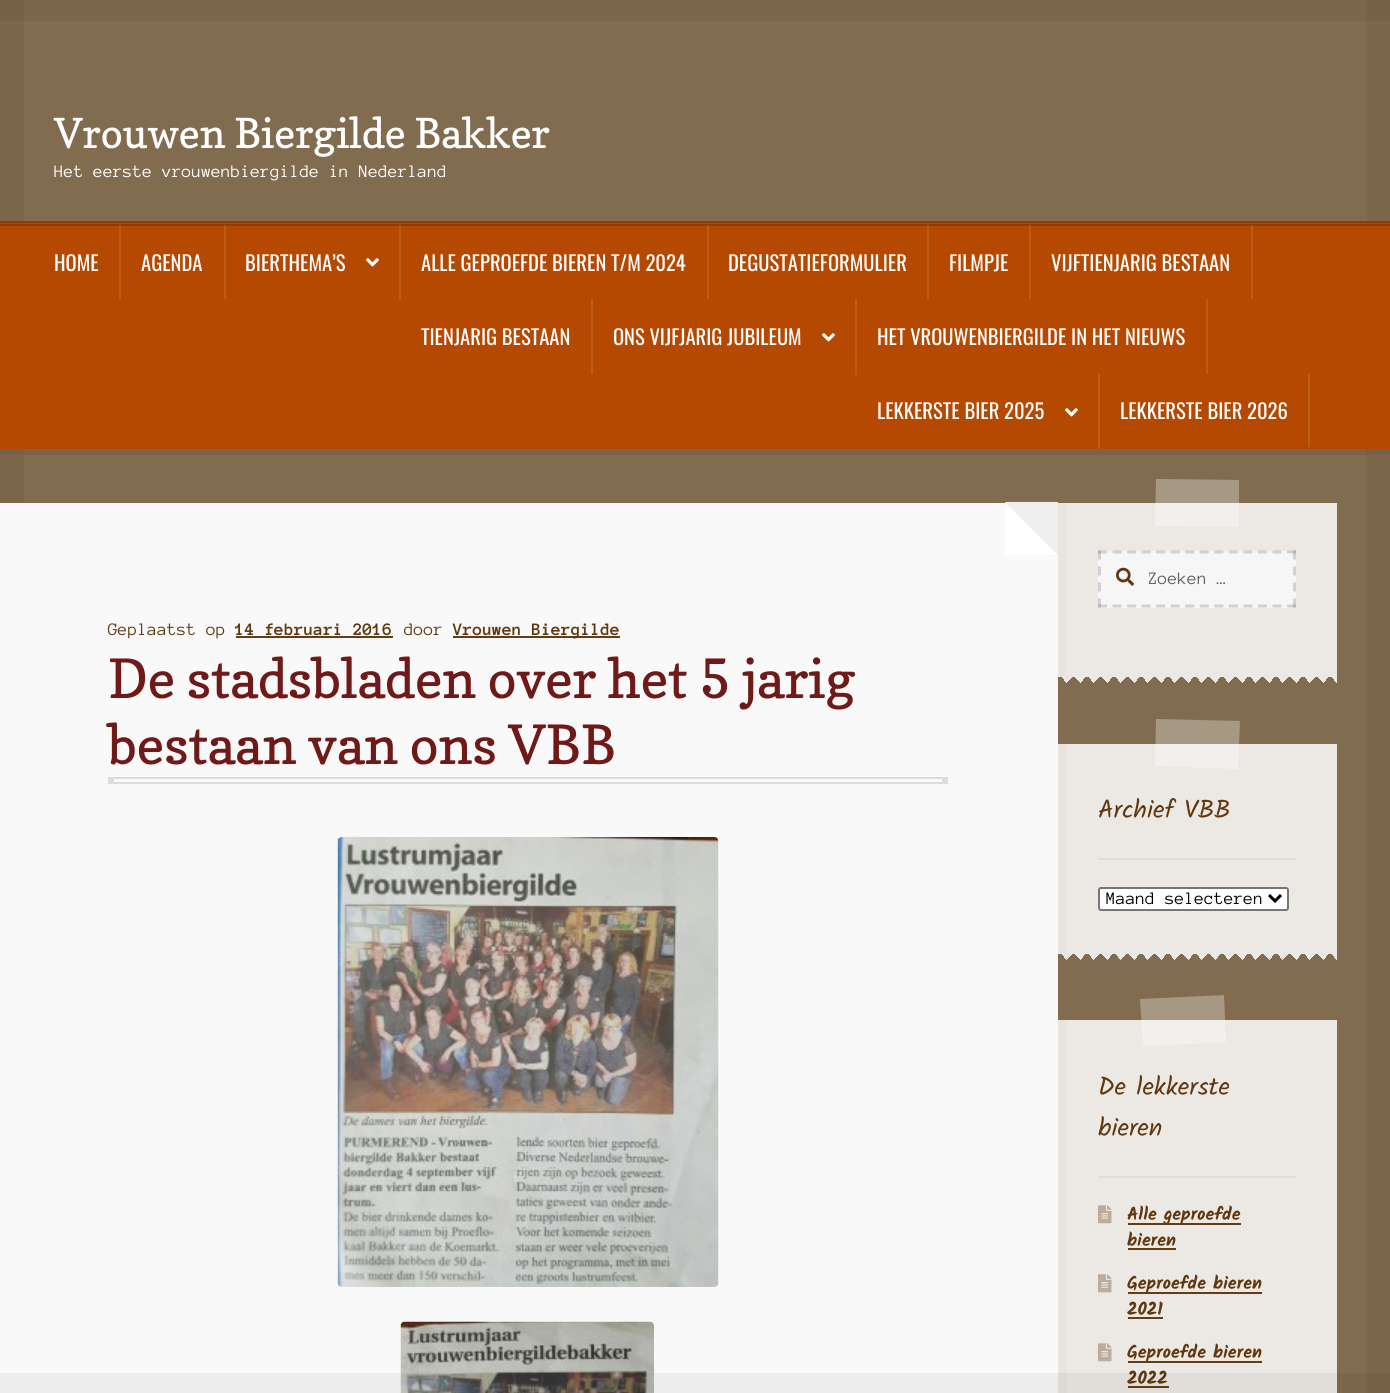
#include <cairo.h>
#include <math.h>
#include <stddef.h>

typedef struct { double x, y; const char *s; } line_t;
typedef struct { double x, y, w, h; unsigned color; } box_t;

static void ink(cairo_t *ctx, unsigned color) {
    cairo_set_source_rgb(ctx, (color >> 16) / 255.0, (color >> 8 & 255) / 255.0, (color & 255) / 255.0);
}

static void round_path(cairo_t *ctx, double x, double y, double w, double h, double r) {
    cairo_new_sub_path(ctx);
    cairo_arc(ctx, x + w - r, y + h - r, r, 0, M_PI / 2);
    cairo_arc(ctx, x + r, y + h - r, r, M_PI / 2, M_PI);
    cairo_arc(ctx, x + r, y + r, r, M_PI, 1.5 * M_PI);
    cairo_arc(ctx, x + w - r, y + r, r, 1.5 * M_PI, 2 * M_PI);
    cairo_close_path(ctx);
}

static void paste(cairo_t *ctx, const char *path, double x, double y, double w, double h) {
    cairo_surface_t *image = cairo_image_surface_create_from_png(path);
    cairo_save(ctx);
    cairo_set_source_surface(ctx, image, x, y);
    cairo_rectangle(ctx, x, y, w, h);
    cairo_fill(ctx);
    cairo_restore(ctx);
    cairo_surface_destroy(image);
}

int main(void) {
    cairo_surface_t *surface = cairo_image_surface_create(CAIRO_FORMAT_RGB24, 1390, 1393);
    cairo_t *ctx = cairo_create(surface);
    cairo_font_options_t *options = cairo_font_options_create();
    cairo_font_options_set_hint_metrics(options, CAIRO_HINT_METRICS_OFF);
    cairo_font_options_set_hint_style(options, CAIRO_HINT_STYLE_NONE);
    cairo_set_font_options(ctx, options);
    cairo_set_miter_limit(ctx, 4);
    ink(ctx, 0x826C4F);
    cairo_paint(ctx);
    {
        static const box_t items[] = {
            {0, 21, 24, 482, 0x7C674B},
            {0, 0, 24, 21, 0x766247},
            {0, 449, 24, 6, 0x736046},
            {24, 0, 1343, 21, 0x7C674B},
            {24, 449, 1343, 6, 0x796449},
        };
        for (size_t i = 0; i < sizeof items / sizeof *items; i++) {
            ink(ctx, items[i].color);
            cairo_rectangle(ctx, items[i].x, items[i].y, items[i].w, items[i].h);
            cairo_fill(ctx);
        }
    }
    cairo_select_font_face(ctx, "Copse", CAIRO_FONT_SLANT_NORMAL, CAIRO_FONT_WEIGHT_NORMAL);
    cairo_set_font_size(ctx, 41.1);
    ink(ctx, 0xFFFFFF);
    cairo_move_to(ctx, 54, 148);
    cairo_show_text(ctx, "Vrouwen Biergilde Bakker");
    cairo_select_font_face(ctx, "Anonymous Pro", CAIRO_FONT_SLANT_NORMAL, CAIRO_FONT_WEIGHT_NORMAL);
    cairo_set_font_size(ctx, 18);
    cairo_move_to(ctx, 54, 177);
    cairo_show_text(ctx, "Het eerste vrouwenbiergilde in Nederland");
    {
        static const box_t items[] = {
            {1367, 21, 23, 1372, 0x7C674B},
            {0, 223, 1390, 226, 0xB64902},
            {1251, 225, 2, 74, 0xBD5B1B},
            {1029, 225, 2, 74, 0xBD5B1B},
            {927, 225, 2, 74, 0xBD5B1B},
            {707, 225, 2, 74, 0xBD5B1B},
            {399, 225, 2, 75, 0xBD5B1B},
            {224, 225, 2, 74, 0xBD5B1B},
            {119, 225, 2, 74, 0xBD5B1B},
            {0, 221, 1390, 2, 0x923A02},
            {0, 224, 1390, 2, 0x923A02},
            {1251, 225, 2, 1, 0x9D4E1B},
            {1029, 225, 2, 1, 0x9D4E1B},
            {927, 225, 2, 1, 0x9D4E1B},
            {707, 225, 2, 1, 0x9D4E1B},
            {399, 225, 2, 1, 0x9D4E1B},
            {224, 225, 2, 1, 0x9D4E1B},
            {119, 225, 2, 1, 0x9D4E1B},
        };
        for (size_t i = 0; i < sizeof items / sizeof *items; i++) {
            ink(ctx, items[i].color);
            cairo_rectangle(ctx, items[i].x, items[i].y, items[i].w, items[i].h);
            cairo_fill(ctx);
        }
    }
    cairo_select_font_face(ctx, "Oswald", CAIRO_FONT_SLANT_NORMAL, CAIRO_FONT_WEIGHT_NORMAL);
    cairo_set_font_size(ctx, 20.6);
    ink(ctx, 0xFFFFFF);
    {
        static const line_t items[] = {
            {54, 271, "HOME"},
            {141, 271, "AGENDA"},
            {245, 271, "BIERTHEMA’S"},
        };
        for (size_t i = 0; i < sizeof items / sizeof *items; i++) {
            cairo_move_to(ctx, items[i].x, items[i].y);
            cairo_show_text(ctx, items[i].s);
        }
    }
    paste(ctx, "media/1.png", 366, 258, 13, 9);
    {
        static const line_t items[] = {
            {421, 271, "ALLE GEPROEFDE BIEREN T/M 2024"},
            {728, 271, "DEGUSTATIEFORMULIER"},
            {949, 271, "FILMPJE"},
            {1051, 271, "VIJFTIENJARIG BESTAAN"},
        };
        for (size_t i = 0; i < sizeof items / sizeof *items; i++) {
            cairo_move_to(ctx, items[i].x, items[i].y);
            cairo_show_text(ctx, items[i].s);
        }
    }
    ink(ctx, 0xBD5B1B);
    cairo_rectangle(ctx, 591, 299, 2, 75);
    cairo_fill(ctx);
    ink(ctx, 0xFFFFFF);
    cairo_move_to(ctx, 421, 345);
    cairo_show_text(ctx, "TIENJARIG BESTAAN");
    ink(ctx, 0xBD5B1B);
    cairo_rectangle(ctx, 855, 299, 2, 76);
    cairo_fill(ctx);
    ink(ctx, 0xFFFFFF);
    cairo_move_to(ctx, 613, 345);
    cairo_show_text(ctx, "ONS VIJFJARIG JUBILEUM");
    paste(ctx, "media/1.png", 822, 333, 13, 9);
    ink(ctx, 0xBD5B1B);
    cairo_rectangle(ctx, 1206, 299, 2, 75);
    cairo_fill(ctx);
    ink(ctx, 0xFFFFFF);
    cairo_move_to(ctx, 877, 345);
    cairo_show_text(ctx, "HET VROUWENBIERGILDE IN HET NIEUWS");
    ink(ctx, 0xBD5B1B);
    cairo_rectangle(ctx, 1098, 374, 2, 75);
    cairo_fill(ctx);
    ink(ctx, 0xFFFFFF);
    cairo_move_to(ctx, 877, 419);
    cairo_show_text(ctx, "LEKKERSTE BIER 2025");
    paste(ctx, "media/1.png", 1065, 408, 13, 9);
    ink(ctx, 0xBD5B1B);
    cairo_rectangle(ctx, 1308, 374, 2, 73);
    cairo_fill(ctx);
    ink(ctx, 0xFFFFFF);
    cairo_move_to(ctx, 1120, 419);
    cairo_show_text(ctx, "LEKKERSTE BIER 2026");
    ink(ctx, 0xF9F9F9);
    cairo_rectangle(ctx, 0, 503, 1058, 890);
    cairo_fill(ctx);
    ink(ctx, 0xFFFFFF);
    cairo_new_path(ctx);
    cairo_move_to(ctx, 1058, 555);
    cairo_line_to(ctx, 1005, 555);
    cairo_line_to(ctx, 1005, 502);
    cairo_close_path(ctx);
    cairo_fill(ctx);
    ink(ctx, 0xEEEEEE);
    cairo_new_path(ctx);
    cairo_move_to(ctx, 1058, 502);
    cairo_line_to(ctx, 1058, 555);
    cairo_line_to(ctx, 1005, 502);
    cairo_close_path(ctx);
    cairo_fill(ctx);
    cairo_select_font_face(ctx, "Anonymous Pro", CAIRO_FONT_SLANT_NORMAL, CAIRO_FONT_WEIGHT_NORMAL);
    cairo_set_font_size(ctx, 18);
    ink(ctx, 0x60380F);
    cairo_move_to(ctx, 108, 635);
    cairo_show_text(ctx, "Geplaatst op");
    cairo_select_font_face(ctx, "Anonymous Pro", CAIRO_FONT_SLANT_NORMAL, CAIRO_FONT_WEIGHT_BOLD);
    cairo_move_to(ctx, 235, 635);
    cairo_show_text(ctx, "14 februari 2016");
    ink(ctx, 0x653D14);
    cairo_rectangle(ctx, 236, 636, 157, 2);
    cairo_fill(ctx);
    cairo_select_font_face(ctx, "Anonymous Pro", CAIRO_FONT_SLANT_NORMAL, CAIRO_FONT_WEIGHT_NORMAL);
    ink(ctx, 0x60380F);
    cairo_move_to(ctx, 404, 635);
    cairo_show_text(ctx, "door");
    ink(ctx, 0x653D14);
    cairo_rectangle(ctx, 453, 636, 167, 2);
    cairo_fill(ctx);
    cairo_select_font_face(ctx, "Anonymous Pro", CAIRO_FONT_SLANT_NORMAL, CAIRO_FONT_WEIGHT_BOLD);
    ink(ctx, 0x60380F);
    cairo_move_to(ctx, 453, 635);
    cairo_show_text(ctx, "Vrouwen Biergilde");
    ink(ctx, 0xDDDDDD);
    cairo_rectangle(ctx, 108, 777, 840, 2);
    cairo_fill(ctx);
    cairo_rectangle(ctx, 108, 782, 840, 2);
    cairo_fill(ctx);
    cairo_select_font_face(ctx, "Copse", CAIRO_FONT_SLANT_NORMAL, CAIRO_FONT_WEIGHT_NORMAL);
    cairo_set_font_size(ctx, 53.8);
    ink(ctx, 0x701919);
    {
        static const line_t items[] = {
            {108, 698, "De stadsbladen over het"},
            {699, 698, "5 jarig"},
            {108, 764, "bestaan van ons VBB"},
        };
        for (size_t i = 0; i < sizeof items / sizeof *items; i++) {
            cairo_move_to(ctx, items[i].x, items[i].y);
            cairo_show_text(ctx, items[i].s);
        }
    }
    ink(ctx, 0xDDDDDD);
    cairo_rectangle(ctx, 108, 779, 6, 3);
    cairo_fill(ctx);
    cairo_rectangle(ctx, 942, 779, 6, 3);
    cairo_fill(ctx);
    paste(ctx, "media/2.png", 337, 837, 382, 450);
    paste(ctx, "media/3.png", 400, 1321, 254, 72);
    ink(ctx, 0xECE9E5);
    cairo_rectangle(ctx, 1067, 503, 270, 174);
    cairo_fill(ctx);
    ink(ctx, 0xE8E5E1);
    cairo_rectangle(ctx, 1058, 503, 9, 174);
    cairo_fill(ctx);
    cairo_set_source_rgba(ctx, 1, 1, 1, 0.3);
    cairo_new_path(ctx);
    cairo_move_to(ctx, 1156, 479);
    cairo_line_to(ctx, 1239, 480);
    cairo_line_to(ctx, 1239, 527);
    cairo_line_to(ctx, 1155, 526);
    cairo_close_path(ctx);
    cairo_fill(ctx);
    ink(ctx, 0xF6F6F6);
    cairo_rectangle(ctx, 1098, 551, 198, 57);
    cairo_fill(ctx);
    paste(ctx, "media/4.png", 1116, 567, 18, 19);
    cairo_new_path(ctx);
    cairo_move_to(ctx, 1098, 552);
    cairo_line_to(ctx, 1296, 552);
    cairo_set_source_rgba(ctx, 0, 0, 0, 0.15);
    cairo_set_line_width(ctx, 3);
    cairo_set_dash(ctx, (double[]){9, 5.54}, 2, 0);
    cairo_stroke(ctx);
    cairo_new_path(ctx);
    cairo_move_to(ctx, 1294.5, 550.5);
    cairo_line_to(ctx, 1294.5, 607.5);
    cairo_set_dash(ctx, (double[]){9, 7}, 2, 0);
    cairo_stroke(ctx);
    cairo_new_path(ctx);
    cairo_move_to(ctx, 1098, 606);
    cairo_line_to(ctx, 1296, 606);
    cairo_set_dash(ctx, (double[]){9, 5.54}, 2, 0);
    cairo_stroke(ctx);
    cairo_new_path(ctx);
    cairo_move_to(ctx, 1099.5, 550.5);
    cairo_line_to(ctx, 1099.5, 607.5);
    cairo_set_dash(ctx, (double[]){9, 7}, 2, 0);
    cairo_stroke(ctx);
    cairo_save(ctx);
    cairo_rectangle(ctx, 1149, 569, 128, 18);
    cairo_clip(ctx);
    cairo_select_font_face(ctx, "Anonymous Pro", CAIRO_FONT_SLANT_NORMAL, CAIRO_FONT_WEIGHT_NORMAL);
    cairo_set_font_size(ctx, 18);
    ink(ctx, 0x616161);
    cairo_move_to(ctx, 1148, 584);
    cairo_show_text(ctx, "Zoeken …");
    cairo_restore(ctx);
    paste(ctx, "media/5.png", 1062, 677, 275, 6);
    paste(ctx, "media/6.png", 1067, 677, 261, 6);
    ink(ctx, 0xECE9E5);
    cairo_rectangle(ctx, 1067, 744, 270, 210);
    cairo_fill(ctx);
    ink(ctx, 0xE8E5E1);
    cairo_rectangle(ctx, 1058, 744, 9, 210);
    cairo_fill(ctx);
    cairo_set_source_rgba(ctx, 1, 1, 1, 0.3);
    cairo_new_path(ctx);
    cairo_move_to(ctx, 1156, 719);
    cairo_line_to(ctx, 1240, 721);
    cairo_line_to(ctx, 1238, 769);
    cairo_line_to(ctx, 1155, 766);
    cairo_close_path(ctx);
    cairo_fill(ctx);
    ink(ctx, 0xE0DDDA);
    cairo_rectangle(ctx, 1098, 858, 198, 2);
    cairo_fill(ctx);
    cairo_select_font_face(ctx, "Kalam", CAIRO_FONT_SLANT_NORMAL, CAIRO_FONT_WEIGHT_NORMAL);
    cairo_set_font_size(ctx, 25.5);
    ink(ctx, 0x60380F);
    cairo_move_to(ctx, 1098, 818);
    cairo_show_text(ctx, "Archief VBB");
    ink(ctx, 0xFFFFFF);
    round_path(ctx, 1099, 888, 189, 22, 2);
    cairo_fill_preserve(ctx);
    ink(ctx, 0x767676);
    cairo_set_line_width(ctx, 2);
    cairo_set_dash(ctx, NULL, 0, 0);
    cairo_stroke(ctx);
    cairo_new_path(ctx);
    cairo_move_to(ctx, 1269, 895);
    cairo_line_to(ctx, 1275, 901);
    cairo_line_to(ctx, 1281, 895);
    ink(ctx, 0x000000);
    cairo_set_line_width(ctx, 3);
    cairo_stroke(ctx);
    cairo_select_font_face(ctx, "Anonymous Pro", CAIRO_FONT_SLANT_NORMAL, CAIRO_FONT_WEIGHT_NORMAL);
    cairo_set_font_size(ctx, 18);
    cairo_move_to(ctx, 1106, 904);
    cairo_show_text(ctx, "Maand selecteren");
    paste(ctx, "media/5.png", 1062, 954, 275, 6);
    paste(ctx, "media/6.png", 1067, 954, 261, 6);
    ink(ctx, 0xECE9E5);
    cairo_rectangle(ctx, 1067, 1020, 270, 373);
    cairo_fill(ctx);
    ink(ctx, 0xE8E5E1);
    cairo_rectangle(ctx, 1058, 1020, 9, 373);
    cairo_fill(ctx);
    cairo_set_source_rgba(ctx, 1, 1, 1, 0.3);
    cairo_new_path(ctx);
    cairo_move_to(ctx, 1140, 999);
    cairo_line_to(ctx, 1224, 995);
    cairo_line_to(ctx, 1226, 1042);
    cairo_line_to(ctx, 1143, 1046);
    cairo_close_path(ctx);
    cairo_fill(ctx);
    ink(ctx, 0xE0DDDA);
    cairo_rectangle(ctx, 1098, 1176, 198, 2);
    cairo_fill(ctx);
    cairo_select_font_face(ctx, "Kalam", CAIRO_FONT_SLANT_NORMAL, CAIRO_FONT_WEIGHT_NORMAL);
    cairo_set_font_size(ctx, 25.5);
    ink(ctx, 0x60380F);
    cairo_move_to(ctx, 1098, 1095);
    cairo_show_text(ctx, "De lekkerste");
    cairo_move_to(ctx, 1098, 1136);
    cairo_show_text(ctx, "bieren");
    paste(ctx, "media/7.png", 1098, 1205, 14, 19);
    ink(ctx, 0x653D14);
    cairo_rectangle(ctx, 1128, 1223, 113, 2);
    cairo_fill(ctx);
    cairo_select_font_face(ctx, "Kalam", CAIRO_FONT_SLANT_NORMAL, CAIRO_FONT_WEIGHT_BOLD);
    cairo_set_font_size(ctx, 18);
    ink(ctx, 0x60380F);
    cairo_move_to(ctx, 1127, 1220);
    cairo_show_text(ctx, "Alle geproefde");
    cairo_move_to(ctx, 1127, 1246);
    cairo_show_text(ctx, "bieren");
    ink(ctx, 0x653D14);
    cairo_rectangle(ctx, 1128, 1248, 48, 2);
    cairo_fill(ctx);
    paste(ctx, "media/7.png", 1098, 1274, 14, 19);
    cairo_rectangle(ctx, 1128, 1292, 134, 2);
    cairo_fill(ctx);
    ink(ctx, 0x60380F);
    cairo_move_to(ctx, 1127, 1289);
    cairo_show_text(ctx, "Geproefde bieren");
    cairo_move_to(ctx, 1127, 1315);
    cairo_show_text(ctx, "2021");
    ink(ctx, 0x653D14);
    cairo_rectangle(ctx, 1128, 1317, 35, 2);
    cairo_fill(ctx);
    paste(ctx, "media/7.png", 1098, 1343, 14, 19);
    cairo_rectangle(ctx, 1128, 1361, 134, 2);
    cairo_fill(ctx);
    ink(ctx, 0x60380F);
    cairo_move_to(ctx, 1127, 1358);
    cairo_show_text(ctx, "Geproefde bieren");
    cairo_move_to(ctx, 1127, 1384);
    cairo_show_text(ctx, "2022");
    ink(ctx, 0x653D14);
    cairo_rectangle(ctx, 1128, 1386, 41, 2);
    cairo_fill(ctx);
    cairo_set_source_rgba(ctx, 0, 0, 0, 0.05);
    cairo_rectangle(ctx, 0, 1373, 1390, 20);
    cairo_fill(ctx);
    ink(ctx, 0x766247);
    cairo_rectangle(ctx, 1367, 0, 23, 21);
    cairo_fill(ctx);
    ink(ctx, 0x736046);
    cairo_rectangle(ctx, 1367, 449, 23, 6);
    cairo_fill(ctx);
    cairo_surface_write_to_png(surface, "image.png");
    cairo_font_options_destroy(options);
    cairo_destroy(ctx);
    cairo_surface_destroy(surface);
    return 0;
}
